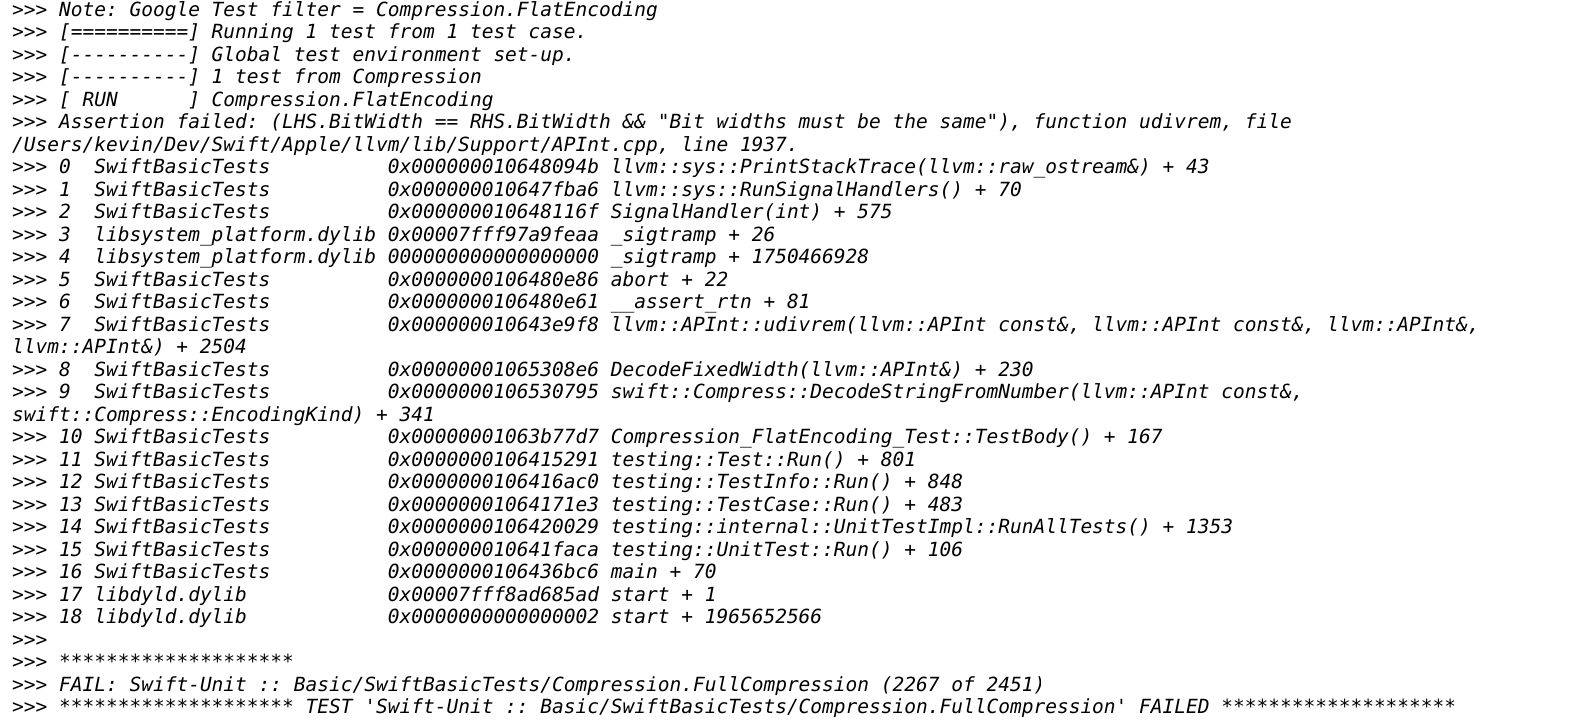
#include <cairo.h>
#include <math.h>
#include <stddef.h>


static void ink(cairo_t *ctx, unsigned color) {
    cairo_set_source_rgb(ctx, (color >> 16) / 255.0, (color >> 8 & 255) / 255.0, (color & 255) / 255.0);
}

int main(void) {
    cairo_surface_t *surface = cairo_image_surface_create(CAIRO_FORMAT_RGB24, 1591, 723);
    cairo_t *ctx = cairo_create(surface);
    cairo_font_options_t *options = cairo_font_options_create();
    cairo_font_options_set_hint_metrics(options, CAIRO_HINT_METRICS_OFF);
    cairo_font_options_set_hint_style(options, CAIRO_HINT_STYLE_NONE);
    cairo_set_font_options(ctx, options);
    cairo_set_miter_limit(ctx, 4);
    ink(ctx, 0xFFFFFF);
    cairo_paint(ctx);
    cairo_select_font_face(ctx, "DejaVu Sans Mono", CAIRO_FONT_SLANT_NORMAL, CAIRO_FONT_WEIGHT_NORMAL);
    cairo_set_font_size(ctx, 19.5);
    ink(ctx, 0x000000);
    cairo_move_to(ctx, 12, 16);
    cairo_show_text(ctx, ">>>");
    cairo_select_font_face(ctx, "DejaVu Sans Mono", CAIRO_FONT_SLANT_ITALIC, CAIRO_FONT_WEIGHT_NORMAL);
    cairo_move_to(ctx, 59, 16);
    cairo_show_text(ctx, "Note: Google Test filter = Compression.FlatEncoding");
    cairo_select_font_face(ctx, "DejaVu Sans Mono", CAIRO_FONT_SLANT_NORMAL, CAIRO_FONT_WEIGHT_NORMAL);
    cairo_move_to(ctx, 12, 38);
    cairo_show_text(ctx, ">>>");
    cairo_select_font_face(ctx, "DejaVu Sans Mono", CAIRO_FONT_SLANT_ITALIC, CAIRO_FONT_WEIGHT_NORMAL);
    cairo_move_to(ctx, 59, 38);
    cairo_show_text(ctx, "[==========] Running 1 test from 1 test case.");
    cairo_select_font_face(ctx, "DejaVu Sans Mono", CAIRO_FONT_SLANT_NORMAL, CAIRO_FONT_WEIGHT_NORMAL);
    cairo_move_to(ctx, 12, 61);
    cairo_show_text(ctx, ">>>");
    cairo_select_font_face(ctx, "DejaVu Sans Mono", CAIRO_FONT_SLANT_ITALIC, CAIRO_FONT_WEIGHT_NORMAL);
    cairo_move_to(ctx, 59, 61);
    cairo_show_text(ctx, "[----------] Global test environment set-up.");
    cairo_select_font_face(ctx, "DejaVu Sans Mono", CAIRO_FONT_SLANT_NORMAL, CAIRO_FONT_WEIGHT_NORMAL);
    cairo_move_to(ctx, 12, 83);
    cairo_show_text(ctx, ">>>");
    cairo_select_font_face(ctx, "DejaVu Sans Mono", CAIRO_FONT_SLANT_ITALIC, CAIRO_FONT_WEIGHT_NORMAL);
    cairo_move_to(ctx, 59, 83);
    cairo_show_text(ctx, "[----------] 1 test from Compression");
    cairo_select_font_face(ctx, "DejaVu Sans Mono", CAIRO_FONT_SLANT_NORMAL, CAIRO_FONT_WEIGHT_NORMAL);
    cairo_move_to(ctx, 12, 106);
    cairo_show_text(ctx, ">>>");
    cairo_select_font_face(ctx, "DejaVu Sans Mono", CAIRO_FONT_SLANT_ITALIC, CAIRO_FONT_WEIGHT_NORMAL);
    cairo_move_to(ctx, 59, 106);
    cairo_show_text(ctx, "[ RUN      ] Compression.FlatEncoding");
    cairo_select_font_face(ctx, "DejaVu Sans Mono", CAIRO_FONT_SLANT_NORMAL, CAIRO_FONT_WEIGHT_NORMAL);
    cairo_move_to(ctx, 12, 128);
    cairo_show_text(ctx, ">>>");
    cairo_select_font_face(ctx, "DejaVu Sans Mono", CAIRO_FONT_SLANT_ITALIC, CAIRO_FONT_WEIGHT_NORMAL);
    cairo_move_to(ctx, 59, 128);
    cairo_show_text(ctx, "Assertion failed: (LHS.BitWidth == RHS.BitWidth && \"Bit widths must be the same\"), function udivrem, file");
    cairo_move_to(ctx, 12, 151);
    cairo_show_text(ctx, "/Users/kevin/Dev/Swift/Apple/llvm/lib/Support/APInt.cpp, line 1937.");
    cairo_select_font_face(ctx, "DejaVu Sans Mono", CAIRO_FONT_SLANT_NORMAL, CAIRO_FONT_WEIGHT_NORMAL);
    cairo_move_to(ctx, 12, 173);
    cairo_show_text(ctx, ">>>");
    cairo_select_font_face(ctx, "DejaVu Sans Mono", CAIRO_FONT_SLANT_ITALIC, CAIRO_FONT_WEIGHT_NORMAL);
    cairo_move_to(ctx, 59, 173);
    cairo_show_text(ctx, "0  SwiftBasicTests          0x000000010648094b llvm::sys::PrintStackTrace(llvm::raw_ostream&) + 43");
    cairo_select_font_face(ctx, "DejaVu Sans Mono", CAIRO_FONT_SLANT_NORMAL, CAIRO_FONT_WEIGHT_NORMAL);
    cairo_move_to(ctx, 12, 196);
    cairo_show_text(ctx, ">>>");
    cairo_select_font_face(ctx, "DejaVu Sans Mono", CAIRO_FONT_SLANT_ITALIC, CAIRO_FONT_WEIGHT_NORMAL);
    cairo_move_to(ctx, 59, 196);
    cairo_show_text(ctx, "1  SwiftBasicTests          0x000000010647fba6 llvm::sys::RunSignalHandlers() + 70");
    cairo_select_font_face(ctx, "DejaVu Sans Mono", CAIRO_FONT_SLANT_NORMAL, CAIRO_FONT_WEIGHT_NORMAL);
    cairo_move_to(ctx, 12, 218);
    cairo_show_text(ctx, ">>>");
    cairo_select_font_face(ctx, "DejaVu Sans Mono", CAIRO_FONT_SLANT_ITALIC, CAIRO_FONT_WEIGHT_NORMAL);
    cairo_move_to(ctx, 59, 218);
    cairo_show_text(ctx, "2  SwiftBasicTests          0x000000010648116f SignalHandler(int) + 575");
    cairo_select_font_face(ctx, "DejaVu Sans Mono", CAIRO_FONT_SLANT_NORMAL, CAIRO_FONT_WEIGHT_NORMAL);
    cairo_move_to(ctx, 12, 241);
    cairo_show_text(ctx, ">>>");
    cairo_select_font_face(ctx, "DejaVu Sans Mono", CAIRO_FONT_SLANT_ITALIC, CAIRO_FONT_WEIGHT_NORMAL);
    cairo_move_to(ctx, 59, 241);
    cairo_show_text(ctx, "3  libsystem_platform.dylib 0x00007fff97a9feaa _sigtramp + 26");
    cairo_select_font_face(ctx, "DejaVu Sans Mono", CAIRO_FONT_SLANT_NORMAL, CAIRO_FONT_WEIGHT_NORMAL);
    cairo_move_to(ctx, 12, 263);
    cairo_show_text(ctx, ">>>");
    cairo_select_font_face(ctx, "DejaVu Sans Mono", CAIRO_FONT_SLANT_ITALIC, CAIRO_FONT_WEIGHT_NORMAL);
    cairo_move_to(ctx, 59, 263);
    cairo_show_text(ctx, "4  libsystem_platform.dylib 000000000000000000 _sigtramp + 1750466928");
    cairo_select_font_face(ctx, "DejaVu Sans Mono", CAIRO_FONT_SLANT_NORMAL, CAIRO_FONT_WEIGHT_NORMAL);
    cairo_move_to(ctx, 12, 286);
    cairo_show_text(ctx, ">>>");
    cairo_select_font_face(ctx, "DejaVu Sans Mono", CAIRO_FONT_SLANT_ITALIC, CAIRO_FONT_WEIGHT_NORMAL);
    cairo_move_to(ctx, 59, 286);
    cairo_show_text(ctx, "5  SwiftBasicTests          0x0000000106480e86 abort + 22");
    cairo_select_font_face(ctx, "DejaVu Sans Mono", CAIRO_FONT_SLANT_NORMAL, CAIRO_FONT_WEIGHT_NORMAL);
    cairo_move_to(ctx, 12, 308);
    cairo_show_text(ctx, ">>>");
    cairo_select_font_face(ctx, "DejaVu Sans Mono", CAIRO_FONT_SLANT_ITALIC, CAIRO_FONT_WEIGHT_NORMAL);
    cairo_move_to(ctx, 59, 308);
    cairo_show_text(ctx, "6  SwiftBasicTests          0x0000000106480e61 __assert_rtn + 81");
    cairo_select_font_face(ctx, "DejaVu Sans Mono", CAIRO_FONT_SLANT_NORMAL, CAIRO_FONT_WEIGHT_NORMAL);
    cairo_move_to(ctx, 12, 331);
    cairo_show_text(ctx, ">>>");
    cairo_select_font_face(ctx, "DejaVu Sans Mono", CAIRO_FONT_SLANT_ITALIC, CAIRO_FONT_WEIGHT_NORMAL);
    cairo_move_to(ctx, 59, 331);
    cairo_show_text(ctx, "7  SwiftBasicTests          0x000000010643e9f8 llvm::APInt::udivrem(llvm::APInt const&, llvm::APInt const&, llvm::APInt&,");
    cairo_move_to(ctx, 12, 353);
    cairo_show_text(ctx, "llvm::APInt&) + 2504");
    cairo_select_font_face(ctx, "DejaVu Sans Mono", CAIRO_FONT_SLANT_NORMAL, CAIRO_FONT_WEIGHT_NORMAL);
    cairo_move_to(ctx, 12, 376);
    cairo_show_text(ctx, ">>>");
    cairo_select_font_face(ctx, "DejaVu Sans Mono", CAIRO_FONT_SLANT_ITALIC, CAIRO_FONT_WEIGHT_NORMAL);
    cairo_move_to(ctx, 59, 376);
    cairo_show_text(ctx, "8  SwiftBasicTests          0x00000001065308e6 DecodeFixedWidth(llvm::APInt&) + 230");
    cairo_select_font_face(ctx, "DejaVu Sans Mono", CAIRO_FONT_SLANT_NORMAL, CAIRO_FONT_WEIGHT_NORMAL);
    cairo_move_to(ctx, 12, 398);
    cairo_show_text(ctx, ">>>");
    cairo_select_font_face(ctx, "DejaVu Sans Mono", CAIRO_FONT_SLANT_ITALIC, CAIRO_FONT_WEIGHT_NORMAL);
    cairo_move_to(ctx, 59, 398);
    cairo_show_text(ctx, "9  SwiftBasicTests          0x0000000106530795 swift::Compress::DecodeStringFromNumber(llvm::APInt const&,");
    cairo_move_to(ctx, 12, 421);
    cairo_show_text(ctx, "swift::Compress::EncodingKind) + 341");
    cairo_select_font_face(ctx, "DejaVu Sans Mono", CAIRO_FONT_SLANT_NORMAL, CAIRO_FONT_WEIGHT_NORMAL);
    cairo_move_to(ctx, 12, 443);
    cairo_show_text(ctx, ">>>");
    cairo_select_font_face(ctx, "DejaVu Sans Mono", CAIRO_FONT_SLANT_ITALIC, CAIRO_FONT_WEIGHT_NORMAL);
    cairo_move_to(ctx, 59, 443);
    cairo_show_text(ctx, "10 SwiftBasicTests          0x00000001063b77d7 Compression_FlatEncoding_Test::TestBody() + 167");
    cairo_select_font_face(ctx, "DejaVu Sans Mono", CAIRO_FONT_SLANT_NORMAL, CAIRO_FONT_WEIGHT_NORMAL);
    cairo_move_to(ctx, 12, 466);
    cairo_show_text(ctx, ">>>");
    cairo_select_font_face(ctx, "DejaVu Sans Mono", CAIRO_FONT_SLANT_ITALIC, CAIRO_FONT_WEIGHT_NORMAL);
    cairo_move_to(ctx, 59, 466);
    cairo_show_text(ctx, "11 SwiftBasicTests          0x0000000106415291 testing::Test::Run() + 801");
    cairo_select_font_face(ctx, "DejaVu Sans Mono", CAIRO_FONT_SLANT_NORMAL, CAIRO_FONT_WEIGHT_NORMAL);
    cairo_move_to(ctx, 12, 488);
    cairo_show_text(ctx, ">>>");
    cairo_select_font_face(ctx, "DejaVu Sans Mono", CAIRO_FONT_SLANT_ITALIC, CAIRO_FONT_WEIGHT_NORMAL);
    cairo_move_to(ctx, 59, 488);
    cairo_show_text(ctx, "12 SwiftBasicTests          0x0000000106416ac0 testing::TestInfo::Run() + 848");
    cairo_select_font_face(ctx, "DejaVu Sans Mono", CAIRO_FONT_SLANT_NORMAL, CAIRO_FONT_WEIGHT_NORMAL);
    cairo_move_to(ctx, 12, 511);
    cairo_show_text(ctx, ">>>");
    cairo_select_font_face(ctx, "DejaVu Sans Mono", CAIRO_FONT_SLANT_ITALIC, CAIRO_FONT_WEIGHT_NORMAL);
    cairo_move_to(ctx, 59, 511);
    cairo_show_text(ctx, "13 SwiftBasicTests          0x00000001064171e3 testing::TestCase::Run() + 483");
    cairo_select_font_face(ctx, "DejaVu Sans Mono", CAIRO_FONT_SLANT_NORMAL, CAIRO_FONT_WEIGHT_NORMAL);
    cairo_move_to(ctx, 12, 533);
    cairo_show_text(ctx, ">>>");
    cairo_select_font_face(ctx, "DejaVu Sans Mono", CAIRO_FONT_SLANT_ITALIC, CAIRO_FONT_WEIGHT_NORMAL);
    cairo_move_to(ctx, 59, 533);
    cairo_show_text(ctx, "14 SwiftBasicTests          0x0000000106420029 testing::internal::UnitTestImpl::RunAllTests() + 1353");
    cairo_select_font_face(ctx, "DejaVu Sans Mono", CAIRO_FONT_SLANT_NORMAL, CAIRO_FONT_WEIGHT_NORMAL);
    cairo_move_to(ctx, 12, 556);
    cairo_show_text(ctx, ">>>");
    cairo_select_font_face(ctx, "DejaVu Sans Mono", CAIRO_FONT_SLANT_ITALIC, CAIRO_FONT_WEIGHT_NORMAL);
    cairo_move_to(ctx, 59, 556);
    cairo_show_text(ctx, "15 SwiftBasicTests          0x000000010641faca testing::UnitTest::Run() + 106");
    cairo_select_font_face(ctx, "DejaVu Sans Mono", CAIRO_FONT_SLANT_NORMAL, CAIRO_FONT_WEIGHT_NORMAL);
    cairo_move_to(ctx, 12, 578);
    cairo_show_text(ctx, ">>>");
    cairo_select_font_face(ctx, "DejaVu Sans Mono", CAIRO_FONT_SLANT_ITALIC, CAIRO_FONT_WEIGHT_NORMAL);
    cairo_move_to(ctx, 59, 578);
    cairo_show_text(ctx, "16 SwiftBasicTests          0x0000000106436bc6 main + 70");
    cairo_select_font_face(ctx, "DejaVu Sans Mono", CAIRO_FONT_SLANT_NORMAL, CAIRO_FONT_WEIGHT_NORMAL);
    cairo_move_to(ctx, 12, 601);
    cairo_show_text(ctx, ">>>");
    cairo_select_font_face(ctx, "DejaVu Sans Mono", CAIRO_FONT_SLANT_ITALIC, CAIRO_FONT_WEIGHT_NORMAL);
    cairo_move_to(ctx, 59, 601);
    cairo_show_text(ctx, "17 libdyld.dylib            0x00007fff8ad685ad start + 1");
    cairo_select_font_face(ctx, "DejaVu Sans Mono", CAIRO_FONT_SLANT_NORMAL, CAIRO_FONT_WEIGHT_NORMAL);
    cairo_move_to(ctx, 12, 623);
    cairo_show_text(ctx, ">>>");
    cairo_select_font_face(ctx, "DejaVu Sans Mono", CAIRO_FONT_SLANT_ITALIC, CAIRO_FONT_WEIGHT_NORMAL);
    cairo_move_to(ctx, 59, 623);
    cairo_show_text(ctx, "18 libdyld.dylib            0x0000000000000002 start + 1965652566");
    cairo_select_font_face(ctx, "DejaVu Sans Mono", CAIRO_FONT_SLANT_NORMAL, CAIRO_FONT_WEIGHT_NORMAL);
    cairo_move_to(ctx, 12, 646);
    cairo_show_text(ctx, ">>>");
    cairo_move_to(ctx, 12, 668);
    cairo_show_text(ctx, ">>>");
    cairo_select_font_face(ctx, "DejaVu Sans Mono", CAIRO_FONT_SLANT_ITALIC, CAIRO_FONT_WEIGHT_NORMAL);
    cairo_move_to(ctx, 59, 668);
    cairo_show_text(ctx, "********************");
    cairo_select_font_face(ctx, "DejaVu Sans Mono", CAIRO_FONT_SLANT_NORMAL, CAIRO_FONT_WEIGHT_NORMAL);
    cairo_move_to(ctx, 12, 691);
    cairo_show_text(ctx, ">>>");
    cairo_select_font_face(ctx, "DejaVu Sans Mono", CAIRO_FONT_SLANT_ITALIC, CAIRO_FONT_WEIGHT_NORMAL);
    cairo_move_to(ctx, 59, 691);
    cairo_show_text(ctx, "FAIL: Swift-Unit :: Basic/SwiftBasicTests/Compression.FullCompression (2267 of 2451)");
    cairo_select_font_face(ctx, "DejaVu Sans Mono", CAIRO_FONT_SLANT_NORMAL, CAIRO_FONT_WEIGHT_NORMAL);
    cairo_move_to(ctx, 12, 713);
    cairo_show_text(ctx, ">>>");
    cairo_select_font_face(ctx, "DejaVu Sans Mono", CAIRO_FONT_SLANT_ITALIC, CAIRO_FONT_WEIGHT_NORMAL);
    cairo_move_to(ctx, 59, 713);
    cairo_show_text(ctx, "******************** TEST 'Swift-Unit :: Basic/SwiftBasicTests/Compression.FullCompression' FAILED ********************");
    cairo_surface_write_to_png(surface, "image.png");
    cairo_font_options_destroy(options);
    cairo_destroy(ctx);
    cairo_surface_destroy(surface);
    return 0;
}
